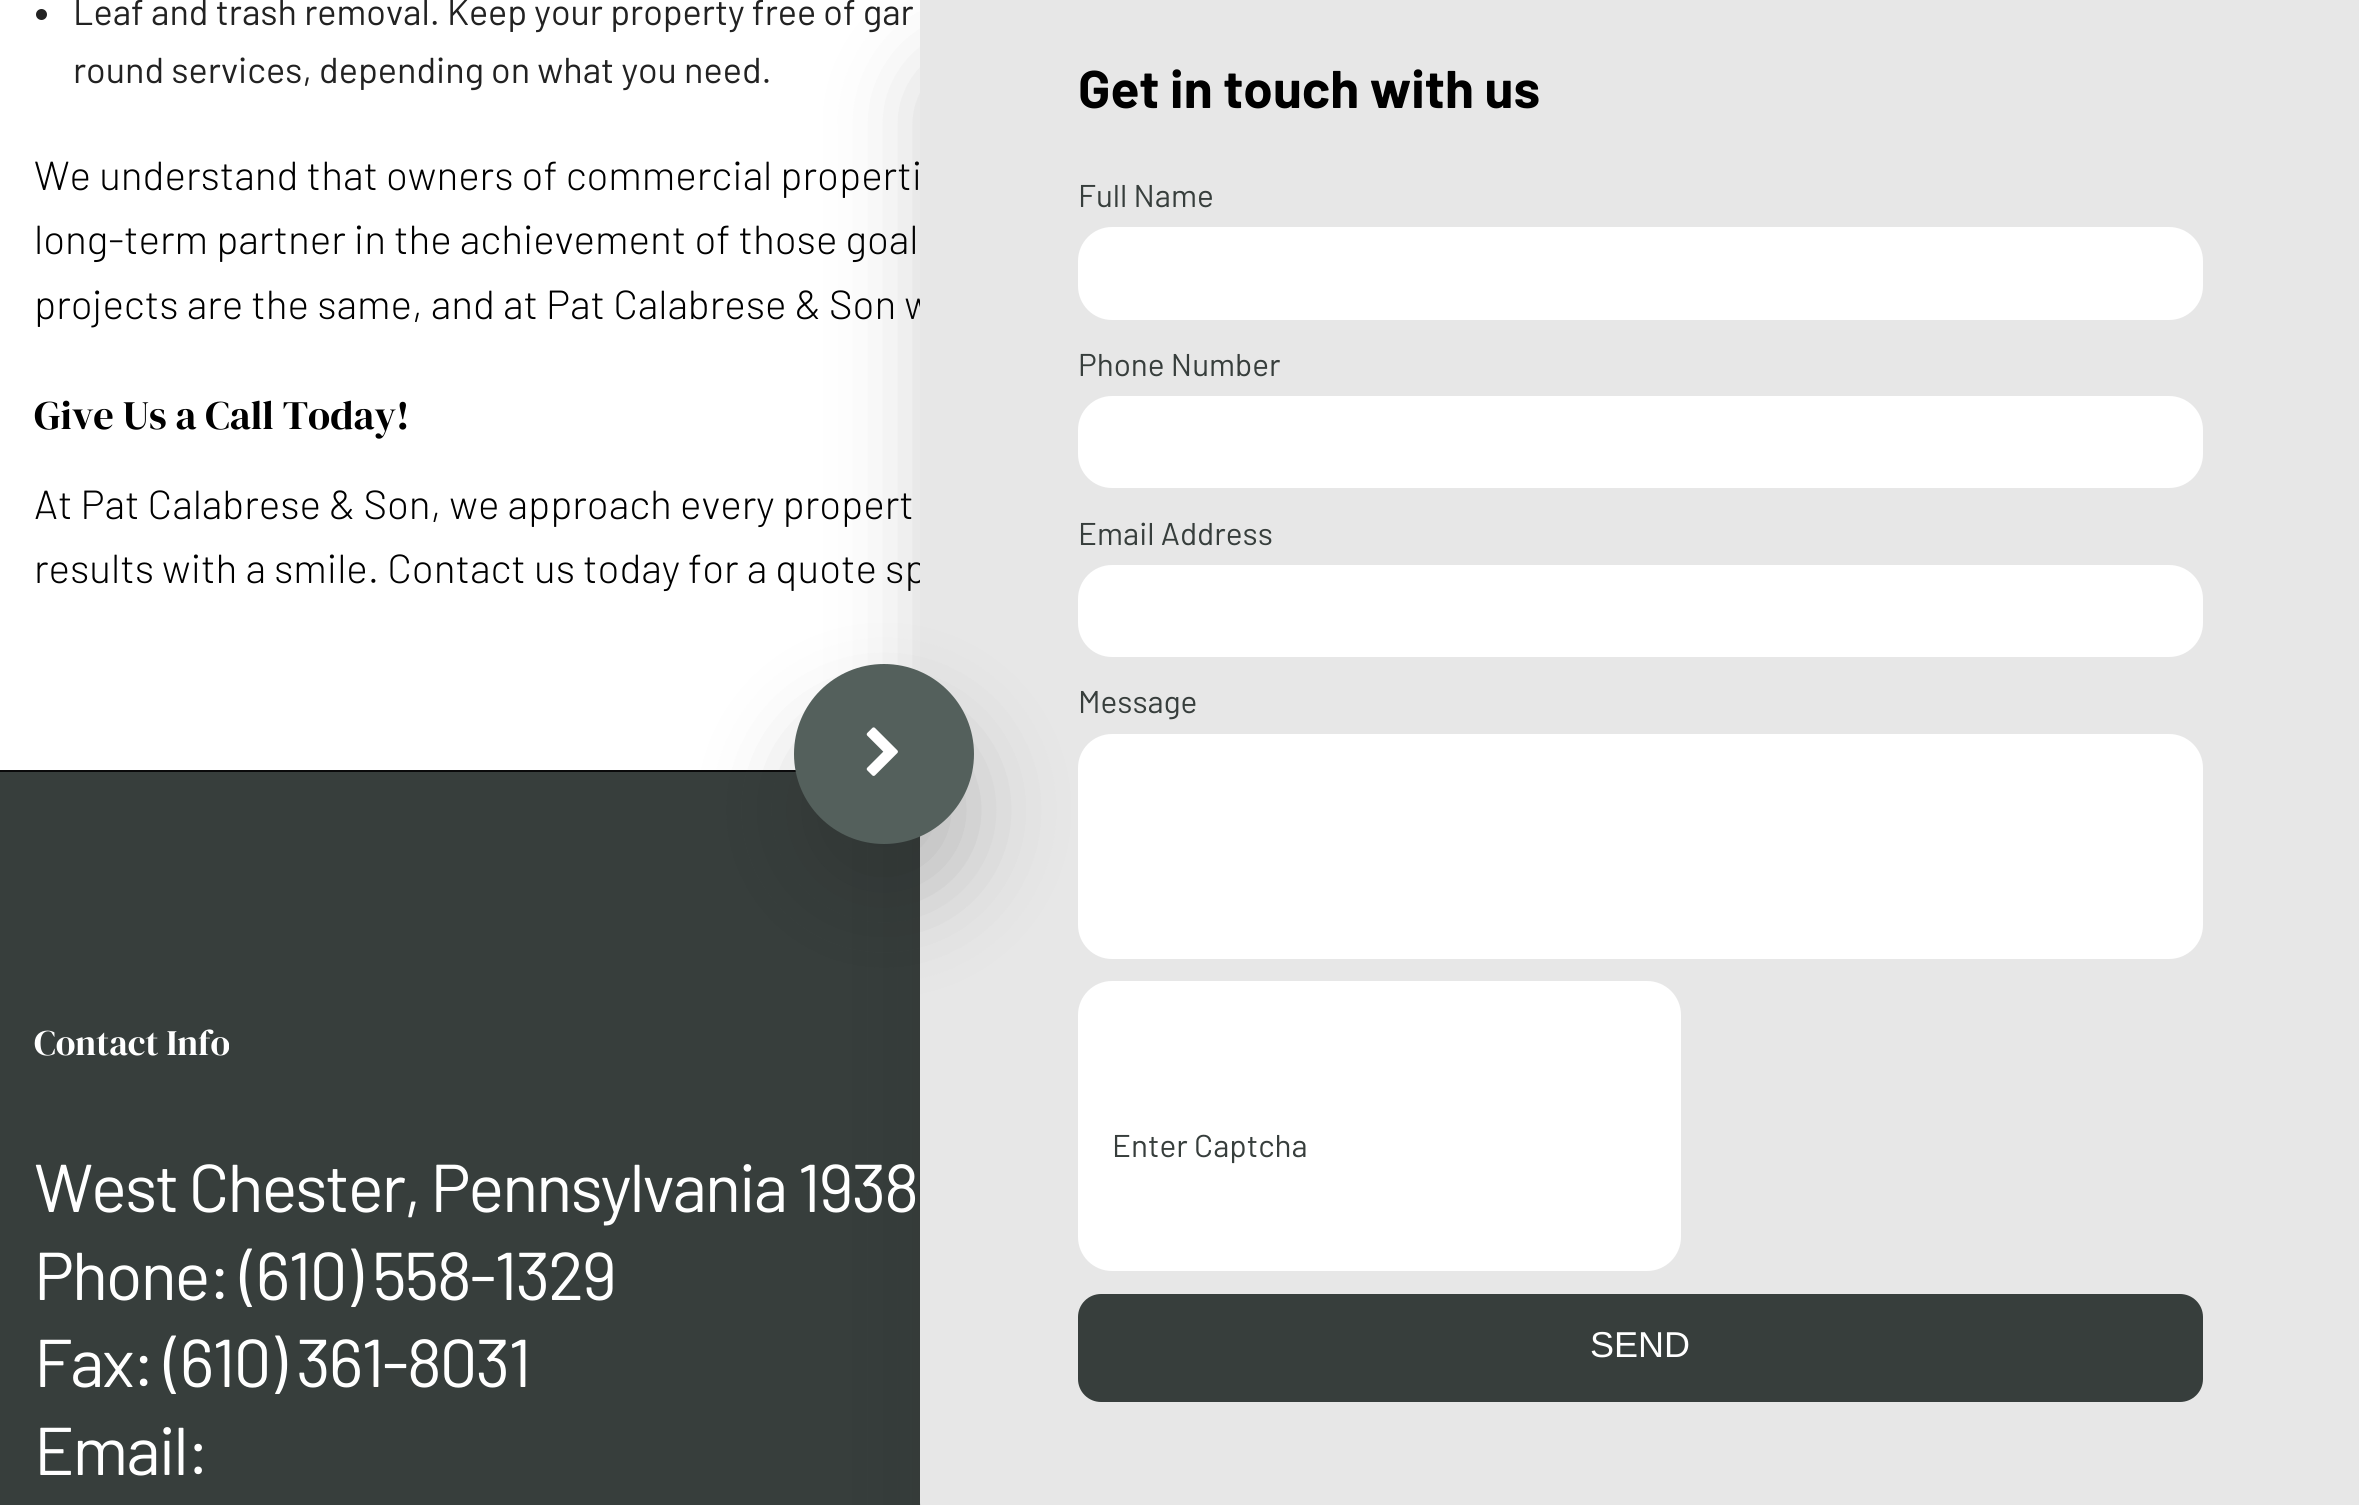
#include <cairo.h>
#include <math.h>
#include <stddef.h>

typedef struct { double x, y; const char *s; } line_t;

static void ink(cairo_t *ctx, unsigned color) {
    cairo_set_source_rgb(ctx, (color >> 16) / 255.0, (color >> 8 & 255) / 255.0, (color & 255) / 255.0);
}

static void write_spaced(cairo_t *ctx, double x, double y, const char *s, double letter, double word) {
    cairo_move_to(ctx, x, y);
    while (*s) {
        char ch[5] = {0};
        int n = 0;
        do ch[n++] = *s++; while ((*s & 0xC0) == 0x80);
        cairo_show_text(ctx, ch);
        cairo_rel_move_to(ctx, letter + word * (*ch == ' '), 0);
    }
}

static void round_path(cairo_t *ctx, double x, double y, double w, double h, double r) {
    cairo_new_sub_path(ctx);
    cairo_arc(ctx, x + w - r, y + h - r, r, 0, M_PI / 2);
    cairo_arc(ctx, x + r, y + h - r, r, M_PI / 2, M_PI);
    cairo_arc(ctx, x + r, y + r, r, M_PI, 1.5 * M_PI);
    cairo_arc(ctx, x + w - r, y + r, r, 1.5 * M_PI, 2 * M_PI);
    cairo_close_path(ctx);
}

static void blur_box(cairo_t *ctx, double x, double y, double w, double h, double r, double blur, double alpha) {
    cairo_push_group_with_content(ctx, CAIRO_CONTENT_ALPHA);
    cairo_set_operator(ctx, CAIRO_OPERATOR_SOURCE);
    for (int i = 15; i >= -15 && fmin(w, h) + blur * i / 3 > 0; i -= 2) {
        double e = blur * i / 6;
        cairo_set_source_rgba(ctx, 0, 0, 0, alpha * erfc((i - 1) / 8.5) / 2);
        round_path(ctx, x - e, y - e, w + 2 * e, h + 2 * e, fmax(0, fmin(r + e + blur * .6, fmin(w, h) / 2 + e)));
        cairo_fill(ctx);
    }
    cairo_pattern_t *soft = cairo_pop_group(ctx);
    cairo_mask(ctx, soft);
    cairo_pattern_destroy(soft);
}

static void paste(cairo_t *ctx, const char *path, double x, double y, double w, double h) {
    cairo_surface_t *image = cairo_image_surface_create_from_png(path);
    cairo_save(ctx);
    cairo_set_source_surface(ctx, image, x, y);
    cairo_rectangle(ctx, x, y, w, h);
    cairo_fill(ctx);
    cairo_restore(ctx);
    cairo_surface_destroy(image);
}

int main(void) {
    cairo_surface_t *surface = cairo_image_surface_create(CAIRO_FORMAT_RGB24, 2359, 1505);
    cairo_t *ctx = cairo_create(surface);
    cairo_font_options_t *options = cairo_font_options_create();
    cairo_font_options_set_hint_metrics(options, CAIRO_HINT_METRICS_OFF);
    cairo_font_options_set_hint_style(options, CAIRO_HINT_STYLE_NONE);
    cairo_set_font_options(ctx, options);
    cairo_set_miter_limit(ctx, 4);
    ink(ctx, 0xFFFFFF);
    cairo_paint(ctx);
    ink(ctx, 0x222222);
    cairo_arc(ctx, 41.5, 14.5, 5.5, 0, 2 * M_PI);
    cairo_fill(ctx);
    cairo_select_font_face(ctx, "Barlow", CAIRO_FONT_SLANT_NORMAL, CAIRO_FONT_WEIGHT_NORMAL);
    cairo_set_font_size(ctx, 36);
    cairo_move_to(ctx, 73, 25);
    cairo_show_text(ctx, "Leaf and trash removal. Keep your property free of gar");
    cairo_move_to(ctx, 73, 83);
    cairo_show_text(ctx, "round services, depending on what you need.");
    cairo_select_font_face(ctx, "Barlow Light", CAIRO_FONT_SLANT_NORMAL, CAIRO_FONT_WEIGHT_NORMAL);
    cairo_set_font_size(ctx, 40.5);
    ink(ctx, 0x000000);
    {
        static const line_t items[] = {
            {34, 190, "We understand that owners of commercial properti"},
            {34, 254, "long-term partner in the achievement of those goal"},
            {34, 319, "projects are the same, and at Pat Calabrese & Son w"},
        };
        for (size_t i = 0; i < sizeof items / sizeof *items; i++) {
            cairo_move_to(ctx, items[i].x, items[i].y);
            cairo_show_text(ctx, items[i].s);
        }
    }
    cairo_select_font_face(ctx, "DM Serif Display", CAIRO_FONT_SLANT_NORMAL, CAIRO_FONT_WEIGHT_NORMAL);
    cairo_move_to(ctx, 34, 429);
    cairo_show_text(ctx, "Give Us a Call Today!");
    cairo_select_font_face(ctx, "Barlow Light", CAIRO_FONT_SLANT_NORMAL, CAIRO_FONT_WEIGHT_NORMAL);
    cairo_move_to(ctx, 34, 519);
    cairo_show_text(ctx, "At Pat Calabrese & Son, we approach every propert");
    cairo_move_to(ctx, 34, 583);
    cairo_show_text(ctx, "results with a smile. Contact us today for a quote sp");
    ink(ctx, 0x373E3C);
    cairo_rectangle(ctx, 0, 772, 921, 733);
    cairo_fill(ctx);
    ink(ctx, 0x0A0A0B);
    cairo_rectangle(ctx, 0, 770, 796, 2);
    cairo_fill(ctx);
    ink(ctx, 0x1C1C1C);
    blur_box(ctx, 920, 63, 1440, 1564, 34, 45, 0.2);
    ink(ctx, 0xE7E7E7);
    cairo_new_path(ctx);
    cairo_move_to(ctx, 943, -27);
    cairo_line_to(ctx, 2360, -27);
    cairo_line_to(ctx, 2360, 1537);
    cairo_line_to(ctx, 954, 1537);
    cairo_curve_to(ctx, 935, 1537, 920, 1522, 920, 1503);
    cairo_line_to(ctx, 920, -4);
    cairo_curve_to(ctx, 920, -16.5, 930.5, -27, 943, -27);
    cairo_close_path(ctx);
    cairo_fill(ctx);
    ink(ctx, 0xFFFFFF);
    round_path(ctx, 1078, 565, 1125, 92, 34);
    cairo_fill(ctx);
    round_path(ctx, 1078, 734, 1125, 225, 34);
    cairo_fill(ctx);
    round_path(ctx, 1078, 981, 603, 290, 34);
    cairo_fill(ctx);
    ink(ctx, 0x1C1C1C);
    blur_box(ctx, 794, 720, 180, 180, 90, 45, 0.2);
    ink(ctx, 0x54605C);
    cairo_arc(ctx, 884, 754, 90, 0, 2 * M_PI);
    cairo_fill(ctx);
    paste(ctx, "media/1.png", 866, 727, 32, 49);
    cairo_select_font_face(ctx, "Barlow", CAIRO_FONT_SLANT_NORMAL, CAIRO_FONT_WEIGHT_BOLD);
    cairo_set_font_size(ctx, 53);
    ink(ctx, 0x000000);
    cairo_move_to(ctx, 1078, 108);
    cairo_show_text(ctx, "Get in touch with us");
    cairo_select_font_face(ctx, "Barlow", CAIRO_FONT_SLANT_NORMAL, CAIRO_FONT_WEIGHT_NORMAL);
    cairo_set_font_size(ctx, 31.5);
    ink(ctx, 0x373E3C);
    cairo_move_to(ctx, 1078, 207);
    cairo_show_text(ctx, "Full Name");
    ink(ctx, 0xFFFFFF);
    round_path(ctx, 1078, 227, 1125, 93, 34);
    cairo_fill(ctx);
    ink(ctx, 0x373E3C);
    cairo_move_to(ctx, 1078, 376);
    cairo_show_text(ctx, "Phone Number");
    ink(ctx, 0xFFFFFF);
    round_path(ctx, 1078, 396, 1125, 92, 34);
    cairo_fill(ctx);
    ink(ctx, 0x373E3C);
    {
        static const line_t items[] = {
            {1078, 545, "Email Address"},
            {1078, 713, "Message"},
            {1112, 1157, "Enter Captcha"},
        };
        for (size_t i = 0; i < sizeof items / sizeof *items; i++) {
            cairo_move_to(ctx, items[i].x, items[i].y);
            cairo_show_text(ctx, items[i].s);
        }
    }
    round_path(ctx, 1078, 1294, 1125, 108, 23);
    cairo_fill(ctx);
    cairo_select_font_face(ctx, "Liberation Sans", CAIRO_FONT_SLANT_NORMAL, CAIRO_FONT_WEIGHT_NORMAL);
    cairo_set_font_size(ctx, 36);
    ink(ctx, 0xFFFFFF);
    cairo_move_to(ctx, 1590, 1357);
    cairo_show_text(ctx, "SEND");
    cairo_select_font_face(ctx, "DM Serif Display", CAIRO_FONT_SLANT_NORMAL, CAIRO_FONT_WEIGHT_NORMAL);
    cairo_move_to(ctx, 34, 1055);
    cairo_show_text(ctx, "Contact Info");
    cairo_select_font_face(ctx, "Barlow", CAIRO_FONT_SLANT_NORMAL, CAIRO_FONT_WEIGHT_NORMAL);
    cairo_set_font_size(ctx, 67.5);
    {
        static const line_t items[] = {
            {34, 1212, "West Chester, Pennsylvania 1938"},
            {34, 1300, "Phone: (610) 558-1329"},
            {34, 1387, "Fax: (610) 361-8031"},
            {34, 1475, "Email:"},
        };
        for (size_t i = 0; i < sizeof items / sizeof *items; i++) {
            write_spaced(ctx, items[i].x, items[i].y, items[i].s, -2.25, 0);
        }
    }
    cairo_surface_write_to_png(surface, "image.png");
    cairo_font_options_destroy(options);
    cairo_destroy(ctx);
    cairo_surface_destroy(surface);
    return 0;
}
